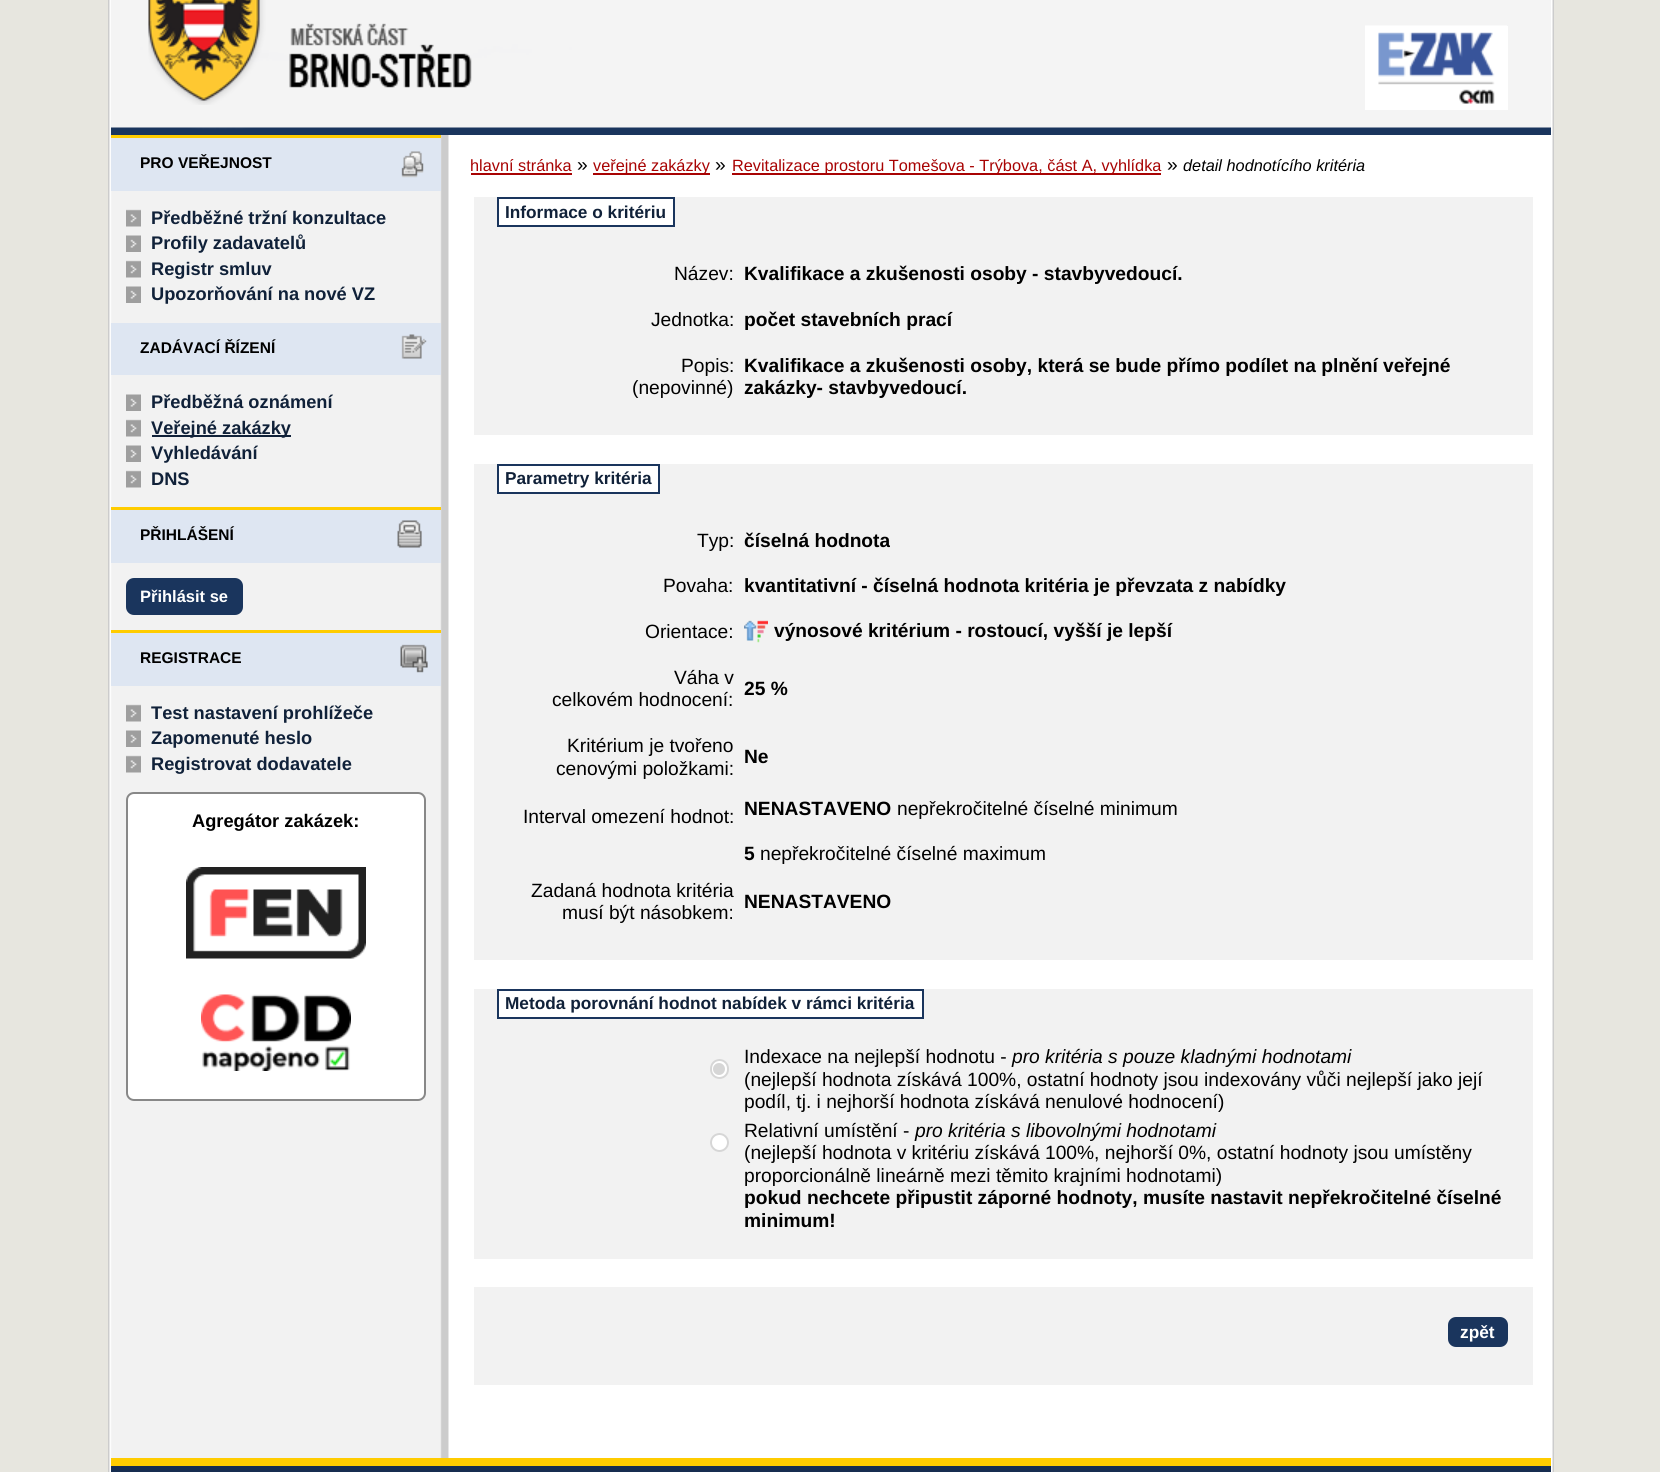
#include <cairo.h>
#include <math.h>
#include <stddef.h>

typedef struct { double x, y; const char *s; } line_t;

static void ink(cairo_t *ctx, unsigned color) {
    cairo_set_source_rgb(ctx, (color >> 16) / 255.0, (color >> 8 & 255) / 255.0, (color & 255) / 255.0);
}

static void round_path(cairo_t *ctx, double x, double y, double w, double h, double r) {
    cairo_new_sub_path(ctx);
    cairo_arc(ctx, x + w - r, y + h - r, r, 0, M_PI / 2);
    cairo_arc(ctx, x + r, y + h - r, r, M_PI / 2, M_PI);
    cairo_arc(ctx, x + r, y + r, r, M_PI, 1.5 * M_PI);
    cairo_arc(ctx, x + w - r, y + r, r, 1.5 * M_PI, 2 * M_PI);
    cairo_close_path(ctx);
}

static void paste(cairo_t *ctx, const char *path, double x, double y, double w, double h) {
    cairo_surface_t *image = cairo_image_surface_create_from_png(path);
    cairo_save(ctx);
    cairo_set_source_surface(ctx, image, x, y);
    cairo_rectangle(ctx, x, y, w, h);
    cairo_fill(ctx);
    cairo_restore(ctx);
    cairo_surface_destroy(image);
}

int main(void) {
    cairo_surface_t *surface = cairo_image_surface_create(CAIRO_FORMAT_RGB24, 1660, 1472);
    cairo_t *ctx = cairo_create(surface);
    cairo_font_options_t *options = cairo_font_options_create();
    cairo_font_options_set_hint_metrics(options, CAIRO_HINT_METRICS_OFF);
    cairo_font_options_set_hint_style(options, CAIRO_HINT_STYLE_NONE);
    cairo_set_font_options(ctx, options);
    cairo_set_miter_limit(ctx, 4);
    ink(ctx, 0xE7E6DF);
    cairo_paint(ctx);
    paste(ctx, "media/1.png", 108, 0, 1446, 1472);
    paste(ctx, "media/2.png", 111, 0, 1440, 135);
    paste(ctx, "media/3.png", 148, 0, 324, 105);
    ink(ctx, 0xFFFFFF);
    cairo_rectangle(ctx, 1365, 26, 143, 84);
    cairo_fill(ctx);
    paste(ctx, "media/4.png", 1365, 25, 142, 79);
    ink(ctx, 0xDEE6F2);
    cairo_rectangle(ctx, 111, 138, 330, 53);
    cairo_fill(ctx);
    paste(ctx, "media/5.png", 401, 151, 23, 27);
    ink(ctx, 0xFFCC00);
    cairo_rectangle(ctx, 111, 135, 330, 3);
    cairo_fill(ctx);
    cairo_select_font_face(ctx, "Liberation Sans", CAIRO_FONT_SLANT_NORMAL, CAIRO_FONT_WEIGHT_BOLD);
    cairo_set_font_size(ctx, 15.5);
    ink(ctx, 0x000000);
    cairo_move_to(ctx, 140, 168);
    cairo_show_text(ctx, "PRO VEŘEJNOST");
    paste(ctx, "media/6.png", 126, 209, 15, 18);
    cairo_set_font_size(ctx, 18.25);
    ink(ctx, 0x102139);
    cairo_move_to(ctx, 151, 224);
    cairo_show_text(ctx, "Předběžné tržní konzultace");
    paste(ctx, "media/7.png", 126, 235, 15, 17);
    cairo_move_to(ctx, 151, 249);
    cairo_show_text(ctx, "Profily zadavatelů");
    paste(ctx, "media/6.png", 126, 260, 15, 18);
    cairo_move_to(ctx, 151, 275);
    cairo_show_text(ctx, "Registr smluv");
    paste(ctx, "media/7.png", 126, 286, 15, 17);
    cairo_move_to(ctx, 151, 300);
    cairo_show_text(ctx, "Upozorňování na nové VZ");
    ink(ctx, 0xDEE6F2);
    cairo_rectangle(ctx, 111, 323, 330, 52);
    cairo_fill(ctx);
    paste(ctx, "media/8.png", 401, 334, 26, 25);
    cairo_set_font_size(ctx, 15.5);
    ink(ctx, 0x000000);
    cairo_move_to(ctx, 140, 353);
    cairo_show_text(ctx, "ZADÁVACÍ ŘÍZENÍ");
    paste(ctx, "media/7.png", 126, 394, 15, 17);
    cairo_set_font_size(ctx, 18.25);
    ink(ctx, 0x102139);
    cairo_move_to(ctx, 151, 408);
    cairo_show_text(ctx, "Předběžná oznámení");
    paste(ctx, "media/6.png", 126, 419, 15, 18);
    cairo_rectangle(ctx, 152, 435, 139, 2);
    cairo_fill(ctx);
    cairo_move_to(ctx, 151, 434);
    cairo_show_text(ctx, "Veřejné zakázky");
    paste(ctx, "media/7.png", 126, 445, 15, 17);
    cairo_move_to(ctx, 151, 459);
    cairo_show_text(ctx, "Vyhledávání");
    paste(ctx, "media/6.png", 126, 470, 15, 18);
    cairo_move_to(ctx, 151, 485);
    cairo_show_text(ctx, "DNS");
    ink(ctx, 0xDEE6F2);
    cairo_rectangle(ctx, 111, 510, 330, 53);
    cairo_fill(ctx);
    paste(ctx, "media/9.png", 397, 520, 25, 28);
    ink(ctx, 0xFFCC00);
    cairo_rectangle(ctx, 111, 507, 330, 3);
    cairo_fill(ctx);
    cairo_set_font_size(ctx, 15.5);
    ink(ctx, 0x000000);
    cairo_move_to(ctx, 140, 540);
    cairo_show_text(ctx, "PŘIHLÁŠENÍ");
    ink(ctx, 0x1A355D);
    round_path(ctx, 126, 578, 117, 37, 8);
    cairo_fill(ctx);
    cairo_set_font_size(ctx, 16.5);
    ink(ctx, 0xFFFFFF);
    cairo_move_to(ctx, 140, 602);
    cairo_show_text(ctx, "Přihlásit se");
    ink(ctx, 0xDEE6F2);
    cairo_rectangle(ctx, 111, 633, 330, 53);
    cairo_fill(ctx);
    paste(ctx, "media/10.png", 400, 644, 28, 29);
    ink(ctx, 0xFFCC00);
    cairo_rectangle(ctx, 111, 630, 330, 3);
    cairo_fill(ctx);
    cairo_set_font_size(ctx, 15.5);
    ink(ctx, 0x000000);
    cairo_move_to(ctx, 140, 663);
    cairo_show_text(ctx, "REGISTRACE");
    paste(ctx, "media/6.png", 126, 704, 15, 18);
    cairo_set_font_size(ctx, 18.25);
    ink(ctx, 0x102139);
    cairo_move_to(ctx, 151, 719);
    cairo_show_text(ctx, "Test nastavení prohlížeče");
    paste(ctx, "media/7.png", 126, 730, 15, 17);
    cairo_move_to(ctx, 151, 744);
    cairo_show_text(ctx, "Zapomenuté heslo");
    paste(ctx, "media/6.png", 126, 755, 15, 18);
    cairo_move_to(ctx, 151, 770);
    cairo_show_text(ctx, "Registrovat dodavatele");
    ink(ctx, 0xFFFFFF);
    round_path(ctx, 127, 793, 298, 307, 7);
    cairo_fill_preserve(ctx);
    ink(ctx, 0x888888);
    cairo_stroke(ctx);
    ink(ctx, 0x000000);
    cairo_move_to(ctx, 192, 827);
    cairo_show_text(ctx, "Agregátor zakázek:");
    paste(ctx, "media/11.png", 186, 867, 180, 92);
    paste(ctx, "media/12.png", 201, 994, 150, 77);
    cairo_select_font_face(ctx, "Liberation Sans", CAIRO_FONT_SLANT_NORMAL, CAIRO_FONT_WEIGHT_NORMAL);
    cairo_set_font_size(ctx, 16.3);
    ink(ctx, 0xA80303);
    cairo_move_to(ctx, 470, 171);
    cairo_show_text(ctx, "hlavní stránka");
    cairo_rectangle(ctx, 471, 173, 101, 2);
    cairo_fill(ctx);
    cairo_set_font_size(ctx, 19.2);
    ink(ctx, 0x000000);
    cairo_move_to(ctx, 577, 171);
    cairo_show_text(ctx, "»");
    ink(ctx, 0xA80303);
    cairo_rectangle(ctx, 593, 173, 117, 2);
    cairo_fill(ctx);
    cairo_set_font_size(ctx, 16.3);
    cairo_move_to(ctx, 593, 171);
    cairo_show_text(ctx, "veřejné zakázky");
    cairo_set_font_size(ctx, 19.2);
    ink(ctx, 0x000000);
    cairo_move_to(ctx, 715, 171);
    cairo_show_text(ctx, "»");
    ink(ctx, 0xA80303);
    cairo_rectangle(ctx, 732, 173, 429, 2);
    cairo_fill(ctx);
    cairo_set_font_size(ctx, 16.3);
    cairo_move_to(ctx, 732, 171);
    cairo_show_text(ctx, "Revitalizace prostoru Tomešova - Trýbova, část A, vyhlídka");
    cairo_set_font_size(ctx, 19.2);
    ink(ctx, 0x000000);
    cairo_move_to(ctx, 1167, 171);
    cairo_show_text(ctx, "»");
    cairo_select_font_face(ctx, "Liberation Sans", CAIRO_FONT_SLANT_ITALIC, CAIRO_FONT_WEIGHT_NORMAL);
    cairo_set_font_size(ctx, 16.3);
    cairo_move_to(ctx, 1183, 171);
    cairo_show_text(ctx, "detail hodnotícího kritéria");
    ink(ctx, 0xF2F2F2);
    cairo_rectangle(ctx, 474, 197, 1059, 238);
    cairo_fill(ctx);
    ink(ctx, 0xFFFFFF);
    cairo_rectangle(ctx, 498, 198, 176, 28);
    cairo_fill_preserve(ctx);
    ink(ctx, 0x1A355D);
    cairo_stroke(ctx);
    cairo_select_font_face(ctx, "Liberation Sans", CAIRO_FONT_SLANT_NORMAL, CAIRO_FONT_WEIGHT_BOLD);
    cairo_set_font_size(ctx, 17.25);
    ink(ctx, 0x102139);
    cairo_move_to(ctx, 505, 218);
    cairo_show_text(ctx, "Informace o kritériu");
    cairo_select_font_face(ctx, "Liberation Sans", CAIRO_FONT_SLANT_NORMAL, CAIRO_FONT_WEIGHT_NORMAL);
    cairo_set_font_size(ctx, 19.2);
    ink(ctx, 0x000000);
    cairo_move_to(ctx, 674, 280);
    cairo_show_text(ctx, "Název:");
    cairo_select_font_face(ctx, "Liberation Sans", CAIRO_FONT_SLANT_NORMAL, CAIRO_FONT_WEIGHT_BOLD);
    cairo_move_to(ctx, 744, 280);
    cairo_show_text(ctx, "Kvalifikace a zkušenosti osoby - stavbyvedoucí.");
    cairo_select_font_face(ctx, "Liberation Sans", CAIRO_FONT_SLANT_NORMAL, CAIRO_FONT_WEIGHT_NORMAL);
    cairo_move_to(ctx, 651, 326);
    cairo_show_text(ctx, "Jednotka:");
    cairo_select_font_face(ctx, "Liberation Sans", CAIRO_FONT_SLANT_NORMAL, CAIRO_FONT_WEIGHT_BOLD);
    cairo_move_to(ctx, 744, 326);
    cairo_show_text(ctx, "počet stavebních prací");
    cairo_select_font_face(ctx, "Liberation Sans", CAIRO_FONT_SLANT_NORMAL, CAIRO_FONT_WEIGHT_NORMAL);
    cairo_move_to(ctx, 681, 372);
    cairo_show_text(ctx, "Popis:");
    cairo_move_to(ctx, 632, 394);
    cairo_show_text(ctx, "(nepovinné)");
    cairo_select_font_face(ctx, "Liberation Sans", CAIRO_FONT_SLANT_NORMAL, CAIRO_FONT_WEIGHT_BOLD);
    cairo_move_to(ctx, 744, 372);
    cairo_show_text(ctx, "Kvalifikace a zkušenosti osoby, která se bude přímo podílet na plnění veřejné");
    cairo_move_to(ctx, 744, 394);
    cairo_show_text(ctx, "zakázky- stavbyvedoucí.");
    ink(ctx, 0xF2F2F2);
    cairo_rectangle(ctx, 474, 464, 1059, 496);
    cairo_fill(ctx);
    ink(ctx, 0xFFFFFF);
    cairo_rectangle(ctx, 498, 465, 161, 28);
    cairo_fill_preserve(ctx);
    ink(ctx, 0x1A355D);
    cairo_stroke(ctx);
    cairo_set_font_size(ctx, 17.25);
    ink(ctx, 0x102139);
    cairo_move_to(ctx, 505, 484);
    cairo_show_text(ctx, "Parametry kritéria");
    cairo_select_font_face(ctx, "Liberation Sans", CAIRO_FONT_SLANT_NORMAL, CAIRO_FONT_WEIGHT_NORMAL);
    cairo_set_font_size(ctx, 19.2);
    ink(ctx, 0x000000);
    cairo_move_to(ctx, 697, 547);
    cairo_show_text(ctx, "Typ:");
    cairo_select_font_face(ctx, "Liberation Sans", CAIRO_FONT_SLANT_NORMAL, CAIRO_FONT_WEIGHT_BOLD);
    cairo_move_to(ctx, 744, 547);
    cairo_show_text(ctx, "číselná hodnota");
    cairo_select_font_face(ctx, "Liberation Sans", CAIRO_FONT_SLANT_NORMAL, CAIRO_FONT_WEIGHT_NORMAL);
    cairo_move_to(ctx, 663, 592);
    cairo_show_text(ctx, "Povaha:");
    cairo_select_font_face(ctx, "Liberation Sans", CAIRO_FONT_SLANT_NORMAL, CAIRO_FONT_WEIGHT_BOLD);
    cairo_move_to(ctx, 744, 592);
    cairo_show_text(ctx, "kvantitativní - číselná hodnota kritéria je převzata z nabídky");
    cairo_select_font_face(ctx, "Liberation Sans", CAIRO_FONT_SLANT_NORMAL, CAIRO_FONT_WEIGHT_NORMAL);
    cairo_move_to(ctx, 645, 638);
    cairo_show_text(ctx, "Orientace:");
    paste(ctx, "media/13.png", 744, 620, 24, 23);
    cairo_select_font_face(ctx, "Liberation Sans", CAIRO_FONT_SLANT_NORMAL, CAIRO_FONT_WEIGHT_BOLD);
    cairo_move_to(ctx, 774, 637);
    cairo_show_text(ctx, "výnosové kritérium - rostoucí, vyšší je lepší");
    cairo_select_font_face(ctx, "Liberation Sans", CAIRO_FONT_SLANT_NORMAL, CAIRO_FONT_WEIGHT_NORMAL);
    cairo_move_to(ctx, 674, 684);
    cairo_show_text(ctx, "Váha v");
    cairo_move_to(ctx, 552, 706);
    cairo_show_text(ctx, "celkovém hodnocení:");
    cairo_select_font_face(ctx, "Liberation Sans", CAIRO_FONT_SLANT_NORMAL, CAIRO_FONT_WEIGHT_BOLD);
    cairo_move_to(ctx, 744, 695);
    cairo_show_text(ctx, "25 %");
    cairo_select_font_face(ctx, "Liberation Sans", CAIRO_FONT_SLANT_NORMAL, CAIRO_FONT_WEIGHT_NORMAL);
    cairo_move_to(ctx, 567, 752);
    cairo_show_text(ctx, "Kritérium je tvořeno");
    cairo_move_to(ctx, 556, 775);
    cairo_show_text(ctx, "cenovými položkami:");
    cairo_select_font_face(ctx, "Liberation Sans", CAIRO_FONT_SLANT_NORMAL, CAIRO_FONT_WEIGHT_BOLD);
    cairo_move_to(ctx, 744, 763);
    cairo_show_text(ctx, "Ne");
    cairo_select_font_face(ctx, "Liberation Sans", CAIRO_FONT_SLANT_NORMAL, CAIRO_FONT_WEIGHT_NORMAL);
    cairo_move_to(ctx, 523, 823);
    cairo_show_text(ctx, "Interval omezení hodnot:");
    cairo_select_font_face(ctx, "Liberation Sans", CAIRO_FONT_SLANT_NORMAL, CAIRO_FONT_WEIGHT_BOLD);
    cairo_move_to(ctx, 744, 815);
    cairo_show_text(ctx, "NENASTAVENO");
    cairo_select_font_face(ctx, "Liberation Sans", CAIRO_FONT_SLANT_NORMAL, CAIRO_FONT_WEIGHT_NORMAL);
    cairo_move_to(ctx, 897, 815);
    cairo_show_text(ctx, "nepřekročitelné číselné minimum");
    cairo_select_font_face(ctx, "Liberation Sans", CAIRO_FONT_SLANT_NORMAL, CAIRO_FONT_WEIGHT_BOLD);
    cairo_move_to(ctx, 744, 860);
    cairo_show_text(ctx, "5");
    cairo_select_font_face(ctx, "Liberation Sans", CAIRO_FONT_SLANT_NORMAL, CAIRO_FONT_WEIGHT_NORMAL);
    {
        static const line_t items[] = {
            {760, 860, "nepřekročitelné číselné maximum"},
            {531, 897, "Zadaná hodnota kritéria"},
            {562, 919, "musí být násobkem:"},
        };
        for (size_t i = 0; i < sizeof items / sizeof *items; i++) {
            cairo_move_to(ctx, items[i].x, items[i].y);
            cairo_show_text(ctx, items[i].s);
        }
    }
    cairo_select_font_face(ctx, "Liberation Sans", CAIRO_FONT_SLANT_NORMAL, CAIRO_FONT_WEIGHT_BOLD);
    cairo_move_to(ctx, 744, 908);
    cairo_show_text(ctx, "NENASTAVENO");
    ink(ctx, 0xF2F2F2);
    cairo_rectangle(ctx, 474, 989, 1059, 270);
    cairo_fill(ctx);
    ink(ctx, 0xFFFFFF);
    cairo_rectangle(ctx, 498, 990, 425, 28);
    cairo_fill_preserve(ctx);
    ink(ctx, 0x1A355D);
    cairo_stroke(ctx);
    cairo_set_font_size(ctx, 17.25);
    ink(ctx, 0x102139);
    cairo_move_to(ctx, 505, 1009);
    cairo_show_text(ctx, "Metoda porovnání hodnot nabídek v rámci kritéria");
    ink(ctx, 0xFFFFFF);
    round_path(ctx, 710, 1059, 19, 20, 9.5);
    cairo_fill(ctx);
    round_path(ctx, 711, 1060, 17, 18, 8.5);
    cairo_set_source_rgba(ctx, 0.463, 0.463, 0.463, 0.3);
    cairo_stroke(ctx);
    ink(ctx, 0xD6D6D6);
    cairo_arc(ctx, 719, 1069, 6, 0, 2 * M_PI);
    cairo_fill(ctx);
    cairo_select_font_face(ctx, "Liberation Sans", CAIRO_FONT_SLANT_NORMAL, CAIRO_FONT_WEIGHT_NORMAL);
    cairo_set_font_size(ctx, 19.2);
    ink(ctx, 0x000000);
    cairo_move_to(ctx, 744, 1063);
    cairo_show_text(ctx, "Indexace na nejlepší hodnotu -");
    cairo_select_font_face(ctx, "Liberation Sans", CAIRO_FONT_SLANT_ITALIC, CAIRO_FONT_WEIGHT_NORMAL);
    cairo_move_to(ctx, 1012, 1063);
    cairo_show_text(ctx, "pro kritéria s pouze kladnými hodnotami");
    cairo_select_font_face(ctx, "Liberation Sans", CAIRO_FONT_SLANT_NORMAL, CAIRO_FONT_WEIGHT_NORMAL);
    cairo_move_to(ctx, 744, 1086);
    cairo_show_text(ctx, "(nejlepší hodnota získává 100%, ostatní hodnoty jsou indexovány vůči nejlepší jako její");
    cairo_move_to(ctx, 744, 1108);
    cairo_show_text(ctx, "podíl, tj. i nejhorší hodnota získává nenulové hodnocení)");
    ink(ctx, 0xFFFFFF);
    cairo_new_path(ctx);
    cairo_arc(ctx, 719.5, 1142.5, 9.5, 0, 2 * M_PI);
    cairo_fill(ctx);
    cairo_arc(ctx, 719.5, 1142.5, 8.5, 0, 2 * M_PI);
    cairo_set_source_rgba(ctx, 0.463, 0.463, 0.463, 0.3);
    cairo_stroke(ctx);
    ink(ctx, 0x000000);
    cairo_move_to(ctx, 744, 1137);
    cairo_show_text(ctx, "Relativní umístění -");
    cairo_select_font_face(ctx, "Liberation Sans", CAIRO_FONT_SLANT_ITALIC, CAIRO_FONT_WEIGHT_NORMAL);
    cairo_move_to(ctx, 915, 1137);
    cairo_show_text(ctx, "pro kritéria s libovolnými hodnotami");
    cairo_select_font_face(ctx, "Liberation Sans", CAIRO_FONT_SLANT_NORMAL, CAIRO_FONT_WEIGHT_NORMAL);
    cairo_move_to(ctx, 744, 1159);
    cairo_show_text(ctx, "(nejlepší hodnota v kritériu získává 100%, nejhorší 0%, ostatní hodnoty jsou umístěny");
    cairo_move_to(ctx, 744, 1182);
    cairo_show_text(ctx, "proporcionálně lineárně mezi těmito krajními hodnotami)");
    cairo_select_font_face(ctx, "Liberation Sans", CAIRO_FONT_SLANT_NORMAL, CAIRO_FONT_WEIGHT_BOLD);
    cairo_move_to(ctx, 744, 1204);
    cairo_show_text(ctx, "pokud nechcete připustit záporné hodnoty, musíte nastavit nepřekročitelné číselné");
    cairo_move_to(ctx, 744, 1227);
    cairo_show_text(ctx, "minimum!");
    ink(ctx, 0xF2F2F2);
    cairo_rectangle(ctx, 474, 1287, 1059, 98);
    cairo_fill(ctx);
    ink(ctx, 0x1A355D);
    round_path(ctx, 1448, 1317, 60, 30, 8);
    cairo_fill(ctx);
    cairo_set_font_size(ctx, 17.25);
    ink(ctx, 0xFFFFFF);
    cairo_move_to(ctx, 1460, 1338);
    cairo_show_text(ctx, "zpět");
    ink(ctx, 0x162D50);
    cairo_rectangle(ctx, 111, 1466, 1440, 6);
    cairo_fill(ctx);
    ink(ctx, 0xFFCC00);
    cairo_rectangle(ctx, 111, 1458, 1440, 8);
    cairo_fill(ctx);
    cairo_surface_write_to_png(surface, "image.png");
    cairo_font_options_destroy(options);
    cairo_destroy(ctx);
    cairo_surface_destroy(surface);
    return 0;
}
